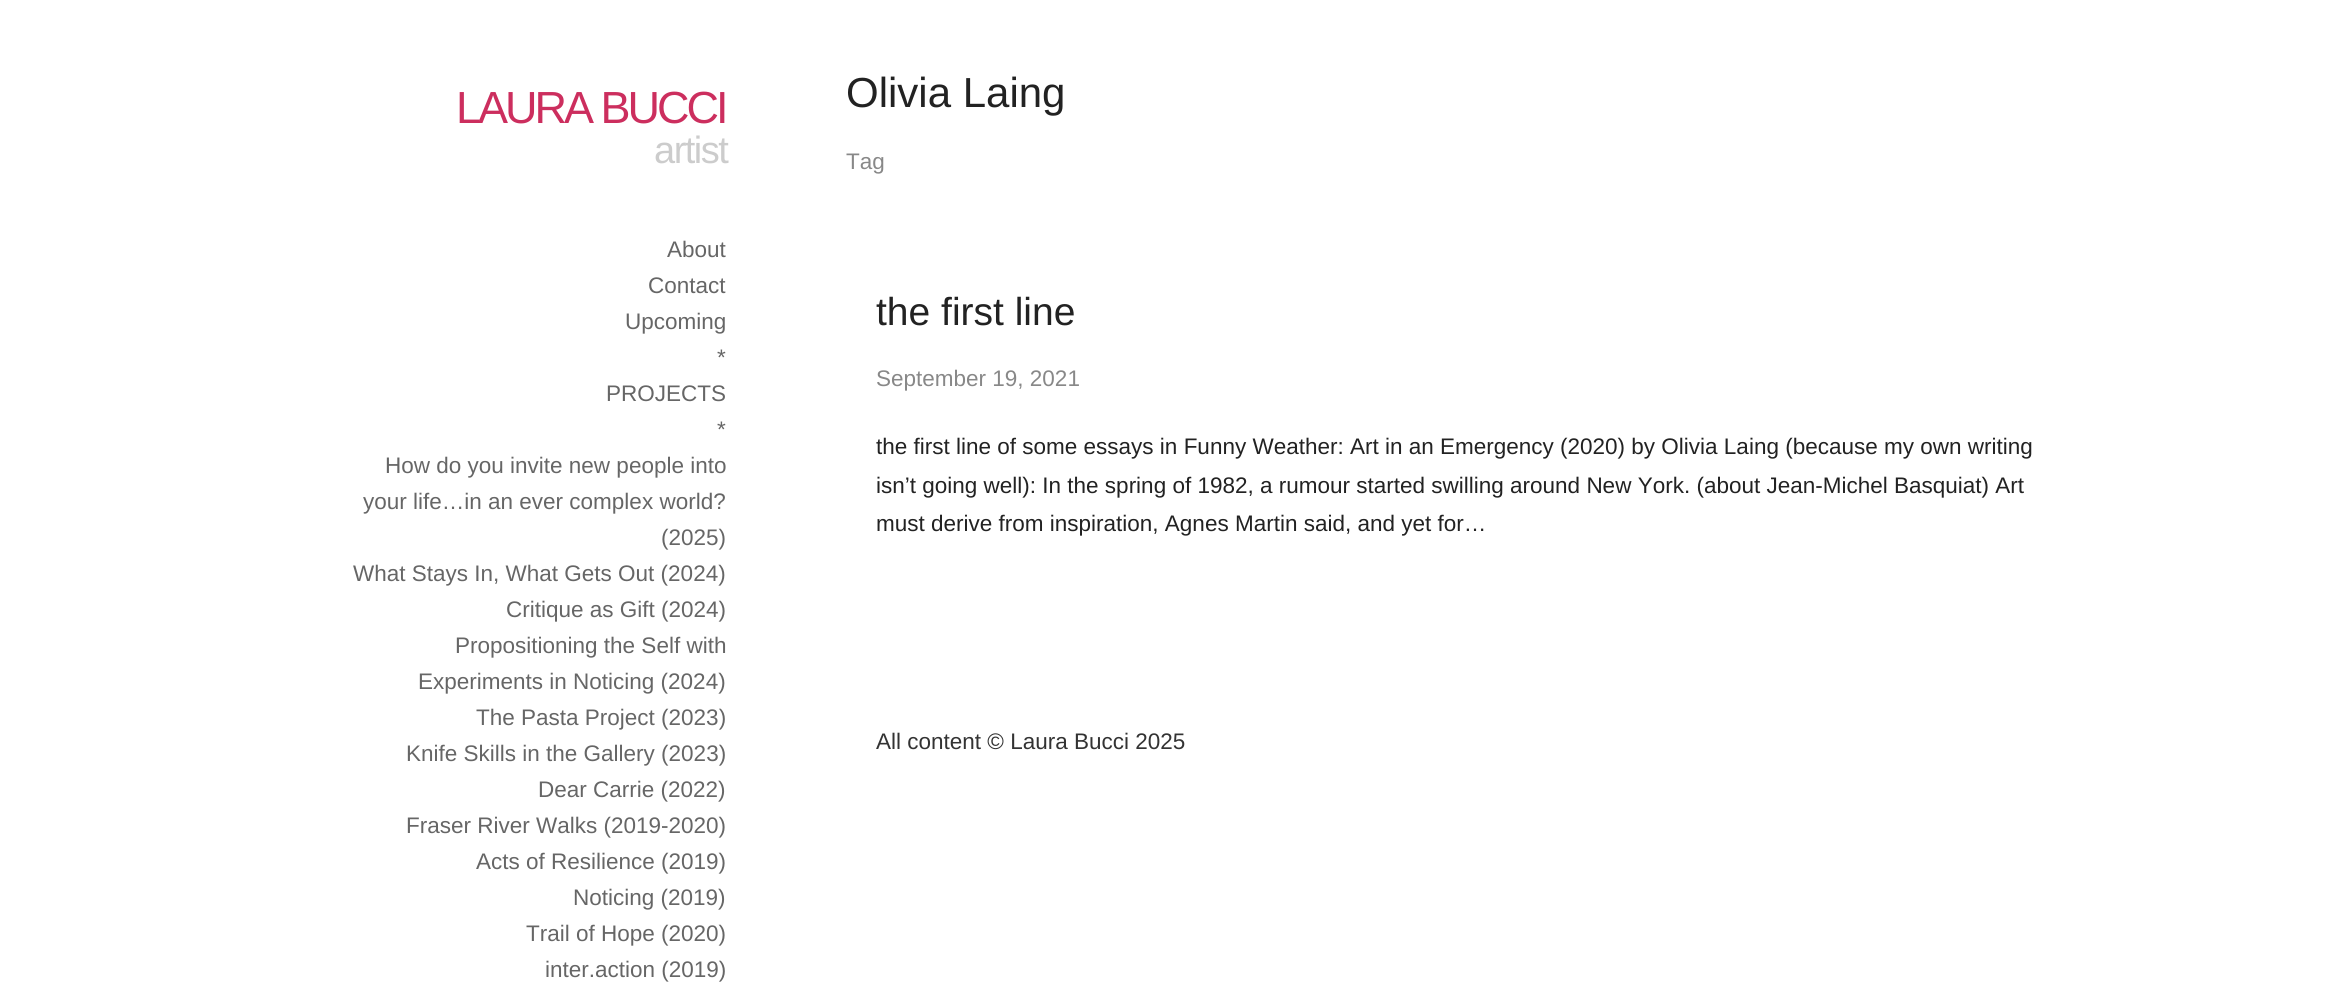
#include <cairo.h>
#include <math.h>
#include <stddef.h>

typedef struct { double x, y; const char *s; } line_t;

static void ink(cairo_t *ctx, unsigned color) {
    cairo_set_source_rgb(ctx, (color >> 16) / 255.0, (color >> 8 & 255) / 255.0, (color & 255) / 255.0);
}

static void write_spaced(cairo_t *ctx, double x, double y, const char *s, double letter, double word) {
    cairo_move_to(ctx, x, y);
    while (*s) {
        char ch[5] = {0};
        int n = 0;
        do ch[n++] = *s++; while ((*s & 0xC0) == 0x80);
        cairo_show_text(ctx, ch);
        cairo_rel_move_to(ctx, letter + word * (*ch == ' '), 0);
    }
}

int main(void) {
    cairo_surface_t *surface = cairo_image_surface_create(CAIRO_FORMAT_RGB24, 2352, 983);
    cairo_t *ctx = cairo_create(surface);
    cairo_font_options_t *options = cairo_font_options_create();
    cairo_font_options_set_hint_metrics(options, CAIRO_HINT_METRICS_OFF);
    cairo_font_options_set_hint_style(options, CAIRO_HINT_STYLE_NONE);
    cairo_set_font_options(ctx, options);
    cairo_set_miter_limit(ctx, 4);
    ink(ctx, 0xFFFFFF);
    cairo_paint(ctx);
    cairo_select_font_face(ctx, "Liberation Sans", CAIRO_FONT_SLANT_NORMAL, CAIRO_FONT_WEIGHT_NORMAL);
    cairo_set_font_size(ctx, 45);
    ink(ctx, 0xCC2E5E);
    write_spaced(ctx, 456, 123, "LAURA BUCCI", -3, 0);
    cairo_set_font_size(ctx, 38);
    ink(ctx, 0xCCCCCC);
    write_spaced(ctx, 654, 163, "artist", -1.5, 0);
    cairo_set_font_size(ctx, 22.5);
    ink(ctx, 0x666666);
    {
        static const line_t items[] = {
            {667, 257, "About"},
            {648, 293, "Contact"},
            {625, 329, "Upcoming"},
            {717, 365, "*"},
            {606, 401, "PROJECTS"},
            {717, 437, "*"},
            {385, 473, "How do you invite new people into"},
            {363, 509, "your life…in an ever complex world?"},
            {661, 545, "(2025)"},
            {353, 581, "What Stays In, What Gets Out (2024)"},
            {506, 617, "Critique as Gift (2024)"},
            {455, 653, "Propositioning the Self with"},
            {418, 689, "Experiments in Noticing (2024)"},
            {476, 725, "The Pasta Project (2023)"},
            {406, 761, "Knife Skills in the Gallery (2023)"},
            {538, 797, "Dear Carrie (2022)"},
            {406, 833, "Fraser River Walks (2019-2020)"},
            {476, 869, "Acts of Resilience (2019)"},
            {573, 905, "Noticing (2019)"},
            {526, 941, "Trail of Hope (2020)"},
            {545, 977, "inter.action (2019)"},
        };
        for (size_t i = 0; i < sizeof items / sizeof *items; i++) {
            cairo_move_to(ctx, items[i].x, items[i].y);
            cairo_show_text(ctx, items[i].s);
        }
    }
    cairo_set_font_size(ctx, 42);
    ink(ctx, 0x222222);
    cairo_move_to(ctx, 846, 107);
    cairo_show_text(ctx, "Olivia Laing");
    cairo_set_font_size(ctx, 22.5);
    ink(ctx, 0x888888);
    cairo_move_to(ctx, 846, 169);
    cairo_show_text(ctx, "Tag");
    cairo_set_font_size(ctx, 39);
    ink(ctx, 0x222222);
    cairo_move_to(ctx, 876, 325);
    cairo_show_text(ctx, "the first line");
    cairo_set_font_size(ctx, 22.5);
    ink(ctx, 0x888888);
    cairo_move_to(ctx, 876, 386);
    cairo_show_text(ctx, "September 19, 2021");
    ink(ctx, 0x222222);
    {
        static const line_t items[] = {
            {876, 454, "the first line of some essays in Funny Weather: Art in an Emergency (2020) by Olivia Laing (because my own writing"},
            {876, 493, "isn’t going well): In the spring of 1982, a rumour started swilling around New York. (about Jean-Michel Basquiat) Art"},
            {876, 531, "must derive from inspiration, Agnes Martin said, and yet for…"},
        };
        for (size_t i = 0; i < sizeof items / sizeof *items; i++) {
            cairo_move_to(ctx, items[i].x, items[i].y);
            cairo_show_text(ctx, items[i].s);
        }
    }
    ink(ctx, 0x333333);
    cairo_move_to(ctx, 876, 749);
    cairo_show_text(ctx, "All content © Laura Bucci 2025");
    cairo_surface_write_to_png(surface, "image.png");
    cairo_font_options_destroy(options);
    cairo_destroy(ctx);
    cairo_surface_destroy(surface);
    return 0;
}
